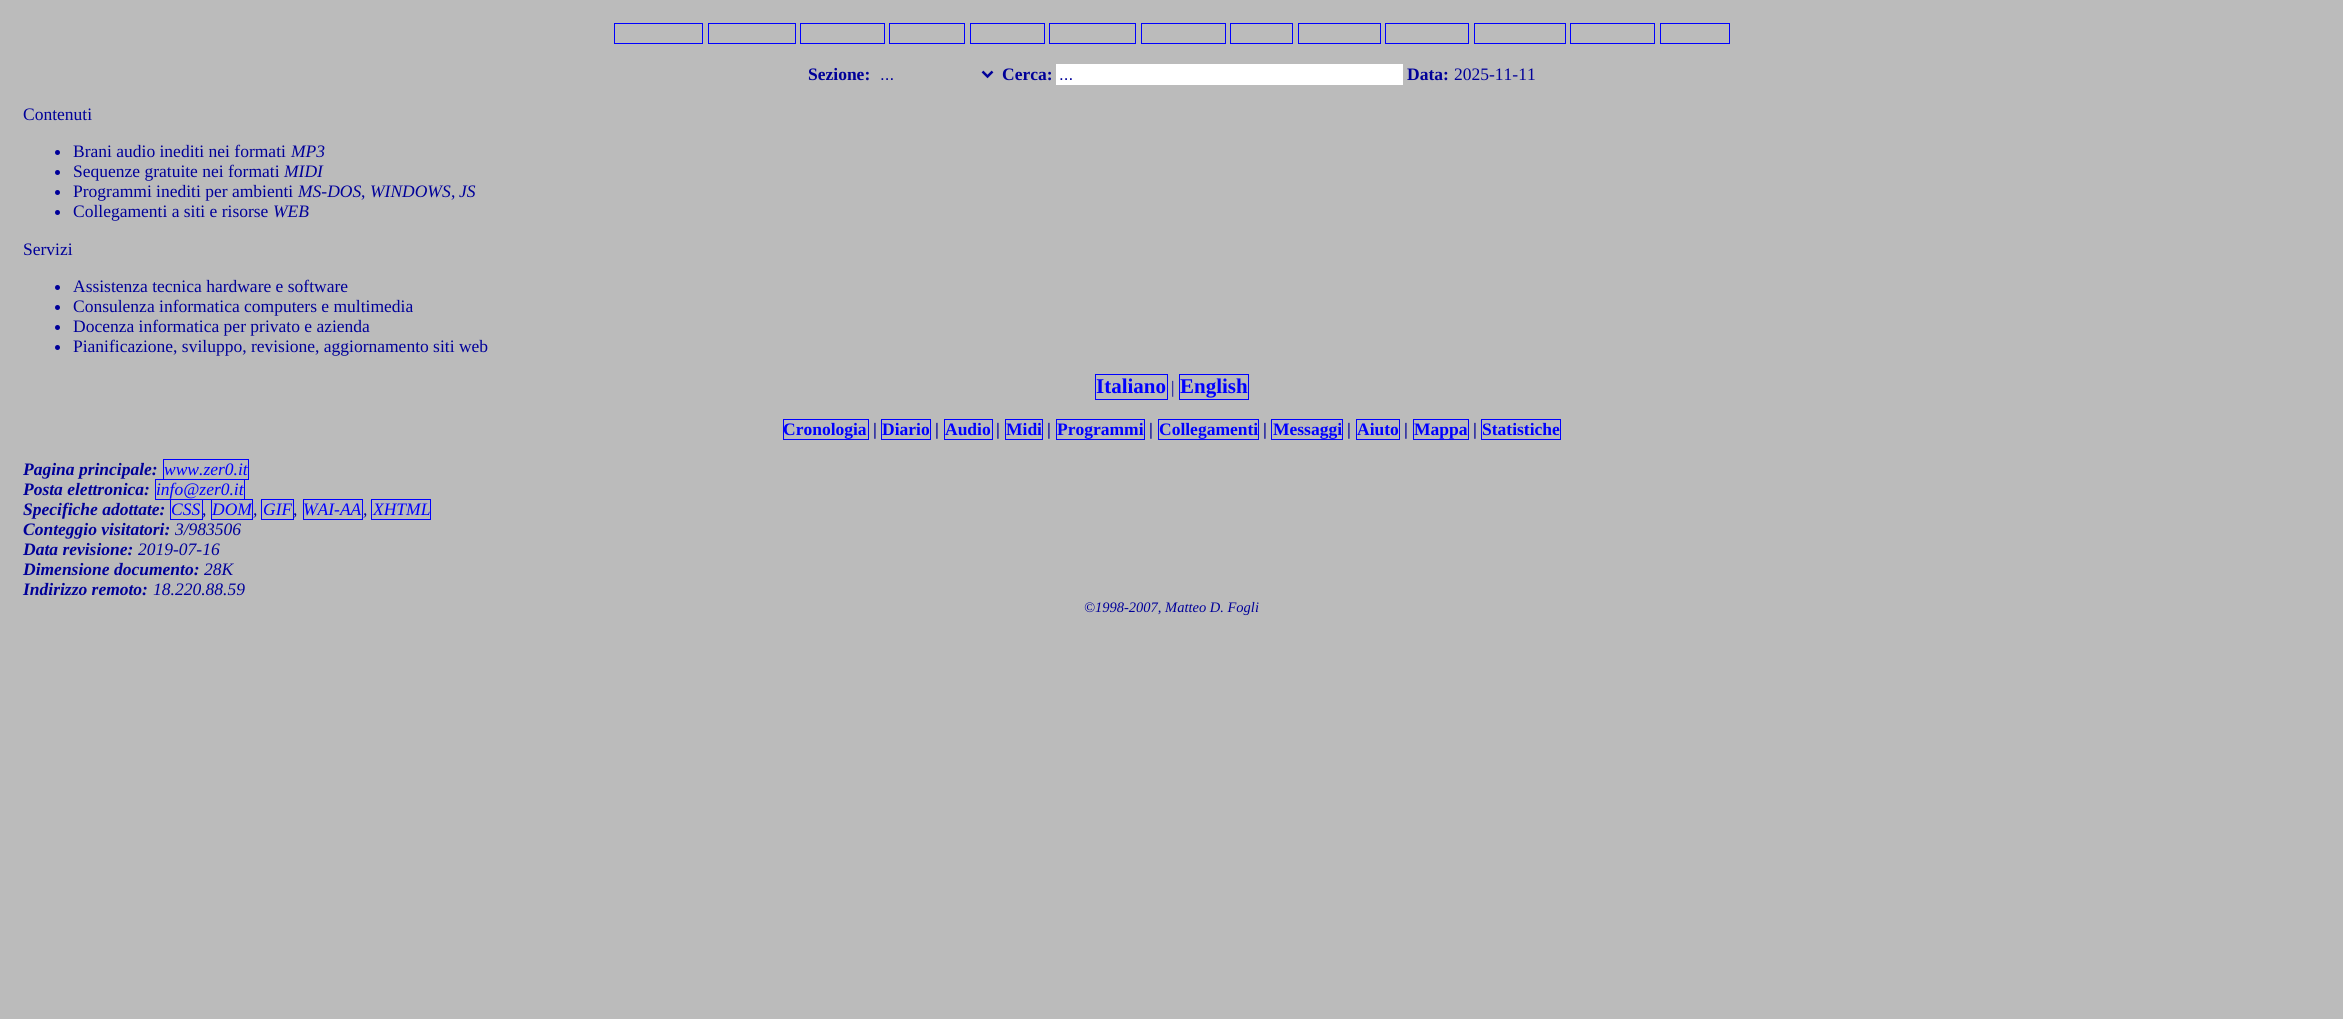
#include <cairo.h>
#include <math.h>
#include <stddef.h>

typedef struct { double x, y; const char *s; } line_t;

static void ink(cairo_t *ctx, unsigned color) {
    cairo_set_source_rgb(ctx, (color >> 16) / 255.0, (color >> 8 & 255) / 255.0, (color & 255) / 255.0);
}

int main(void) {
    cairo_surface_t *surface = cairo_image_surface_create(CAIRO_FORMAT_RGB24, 2343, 1019);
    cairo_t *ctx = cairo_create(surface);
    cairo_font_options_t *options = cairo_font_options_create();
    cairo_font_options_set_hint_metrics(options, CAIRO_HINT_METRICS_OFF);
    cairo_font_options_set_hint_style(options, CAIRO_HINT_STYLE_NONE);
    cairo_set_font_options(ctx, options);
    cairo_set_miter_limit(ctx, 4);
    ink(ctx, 0xBBBBBB);
    cairo_paint(ctx);
    cairo_rectangle(ctx, 614.5, 23.5, 88, 20);
    ink(ctx, 0x0000FF);
    cairo_set_line_width(ctx, 1);
    cairo_stroke(ctx);
    cairo_rectangle(ctx, 708.5, 23.5, 87, 20);
    cairo_stroke(ctx);
    cairo_rectangle(ctx, 800.5, 23.5, 84, 20);
    cairo_stroke(ctx);
    cairo_rectangle(ctx, 889.5, 23.5, 75, 20);
    cairo_stroke(ctx);
    cairo_rectangle(ctx, 970.5, 23.5, 74, 20);
    cairo_stroke(ctx);
    cairo_rectangle(ctx, 1049.5, 23.5, 86, 20);
    cairo_stroke(ctx);
    cairo_rectangle(ctx, 1141.5, 23.5, 84, 20);
    cairo_stroke(ctx);
    cairo_rectangle(ctx, 1230.5, 23.5, 62, 20);
    cairo_stroke(ctx);
    cairo_rectangle(ctx, 1298.5, 23.5, 82, 20);
    cairo_stroke(ctx);
    cairo_rectangle(ctx, 1385.5, 23.5, 83, 20);
    cairo_stroke(ctx);
    cairo_rectangle(ctx, 1474.5, 23.5, 91, 20);
    cairo_stroke(ctx);
    cairo_rectangle(ctx, 1570.5, 23.5, 84, 20);
    cairo_stroke(ctx);
    cairo_rectangle(ctx, 1660.5, 23.5, 69, 20);
    cairo_stroke(ctx);
    cairo_select_font_face(ctx, "Liberation Serif", CAIRO_FONT_SLANT_NORMAL, CAIRO_FONT_WEIGHT_BOLD);
    cairo_set_font_size(ctx, 17.5);
    ink(ctx, 0x000099);
    cairo_move_to(ctx, 808, 80);
    cairo_show_text(ctx, "Sezione:");
    cairo_new_path(ctx);
    cairo_move_to(ctx, 982.5, 71.5);
    cairo_line_to(ctx, 987.5, 76.5);
    cairo_line_to(ctx, 992.5, 71.5);
    cairo_set_line_width(ctx, 2.5);
    cairo_stroke(ctx);
    cairo_select_font_face(ctx, "Liberation Sans", CAIRO_FONT_SLANT_NORMAL, CAIRO_FONT_WEIGHT_NORMAL);
    cairo_set_font_size(ctx, 17);
    cairo_move_to(ctx, 880, 80);
    cairo_show_text(ctx, "...");
    cairo_select_font_face(ctx, "Liberation Serif", CAIRO_FONT_SLANT_NORMAL, CAIRO_FONT_WEIGHT_BOLD);
    cairo_set_font_size(ctx, 17.5);
    cairo_move_to(ctx, 1002, 80);
    cairo_show_text(ctx, "Cerca:");
    ink(ctx, 0xFFFFFF);
    cairo_rectangle(ctx, 1056, 64, 347, 21);
    cairo_fill(ctx);
    cairo_select_font_face(ctx, "Liberation Sans", CAIRO_FONT_SLANT_NORMAL, CAIRO_FONT_WEIGHT_NORMAL);
    cairo_set_font_size(ctx, 17);
    ink(ctx, 0x000099);
    cairo_move_to(ctx, 1059, 80);
    cairo_show_text(ctx, "...");
    cairo_select_font_face(ctx, "Liberation Serif", CAIRO_FONT_SLANT_NORMAL, CAIRO_FONT_WEIGHT_BOLD);
    cairo_set_font_size(ctx, 17.5);
    cairo_move_to(ctx, 1407, 80);
    cairo_show_text(ctx, "Data:");
    cairo_select_font_face(ctx, "Liberation Serif", CAIRO_FONT_SLANT_NORMAL, CAIRO_FONT_WEIGHT_NORMAL);
    cairo_move_to(ctx, 1454, 80);
    cairo_show_text(ctx, "2025-11-11");
    cairo_move_to(ctx, 23, 120);
    cairo_show_text(ctx, "Contenuti");
    cairo_new_path(ctx);
    cairo_arc(ctx, 57.5, 152.5, 2.5, 0, 2 * M_PI);
    cairo_fill(ctx);
    cairo_move_to(ctx, 73, 157);
    cairo_show_text(ctx, "Brani audio inediti nei formati");
    cairo_select_font_face(ctx, "Liberation Serif", CAIRO_FONT_SLANT_ITALIC, CAIRO_FONT_WEIGHT_NORMAL);
    cairo_move_to(ctx, 291, 157);
    cairo_show_text(ctx, "MP3");
    cairo_new_path(ctx);
    cairo_arc(ctx, 57.5, 172.5, 2.5, 0, 2 * M_PI);
    cairo_fill(ctx);
    cairo_select_font_face(ctx, "Liberation Serif", CAIRO_FONT_SLANT_NORMAL, CAIRO_FONT_WEIGHT_NORMAL);
    cairo_move_to(ctx, 73, 177);
    cairo_show_text(ctx, "Sequenze gratuite nei formati");
    cairo_select_font_face(ctx, "Liberation Serif", CAIRO_FONT_SLANT_ITALIC, CAIRO_FONT_WEIGHT_NORMAL);
    cairo_move_to(ctx, 284, 177);
    cairo_show_text(ctx, "MIDI");
    cairo_new_path(ctx);
    cairo_arc(ctx, 57.5, 192.5, 2.5, 0, 2 * M_PI);
    cairo_fill(ctx);
    cairo_select_font_face(ctx, "Liberation Serif", CAIRO_FONT_SLANT_NORMAL, CAIRO_FONT_WEIGHT_NORMAL);
    cairo_move_to(ctx, 73, 197);
    cairo_show_text(ctx, "Programmi inediti per ambienti");
    cairo_select_font_face(ctx, "Liberation Serif", CAIRO_FONT_SLANT_ITALIC, CAIRO_FONT_WEIGHT_NORMAL);
    {
        static const line_t items[] = {
            {298, 197, "MS-DOS"},
            {370, 197, "WINDOWS"},
            {459, 197, "JS"},
        };
        for (size_t i = 0; i < sizeof items / sizeof *items; i++) {
            cairo_move_to(ctx, items[i].x, items[i].y);
            cairo_show_text(ctx, items[i].s);
        }
    }
    cairo_select_font_face(ctx, "Liberation Serif", CAIRO_FONT_SLANT_NORMAL, CAIRO_FONT_WEIGHT_NORMAL);
    cairo_move_to(ctx, 361, 197);
    cairo_show_text(ctx, ",");
    cairo_move_to(ctx, 451, 197);
    cairo_show_text(ctx, ",");
    cairo_new_path(ctx);
    cairo_arc(ctx, 57.5, 212.5, 2.5, 0, 2 * M_PI);
    cairo_fill(ctx);
    cairo_move_to(ctx, 73, 217);
    cairo_show_text(ctx, "Collegamenti a siti e risorse");
    cairo_select_font_face(ctx, "Liberation Serif", CAIRO_FONT_SLANT_ITALIC, CAIRO_FONT_WEIGHT_NORMAL);
    cairo_move_to(ctx, 273, 217);
    cairo_show_text(ctx, "WEB");
    cairo_select_font_face(ctx, "Liberation Serif", CAIRO_FONT_SLANT_NORMAL, CAIRO_FONT_WEIGHT_NORMAL);
    cairo_move_to(ctx, 23, 255);
    cairo_show_text(ctx, "Servizi");
    cairo_new_path(ctx);
    cairo_arc(ctx, 57.5, 287.5, 2.5, 0, 2 * M_PI);
    cairo_fill(ctx);
    cairo_move_to(ctx, 73, 292);
    cairo_show_text(ctx, "Assistenza tecnica hardware e software");
    cairo_new_path(ctx);
    cairo_arc(ctx, 57.5, 307.5, 2.5, 0, 2 * M_PI);
    cairo_fill(ctx);
    cairo_move_to(ctx, 73, 312);
    cairo_show_text(ctx, "Consulenza informatica computers e multimedia");
    cairo_new_path(ctx);
    cairo_arc(ctx, 57.5, 327.5, 2.5, 0, 2 * M_PI);
    cairo_fill(ctx);
    cairo_move_to(ctx, 73, 332);
    cairo_show_text(ctx, "Docenza informatica per privato e azienda");
    cairo_new_path(ctx);
    cairo_arc(ctx, 57.5, 347.5, 2.5, 0, 2 * M_PI);
    cairo_fill(ctx);
    cairo_move_to(ctx, 73, 352);
    cairo_show_text(ctx, "Pianificazione, sviluppo, revisione, aggiornamento siti web");
    cairo_rectangle(ctx, 1095.5, 374.5, 72, 25);
    ink(ctx, 0x0000FF);
    cairo_set_line_width(ctx, 1);
    cairo_stroke(ctx);
    cairo_select_font_face(ctx, "Liberation Serif", CAIRO_FONT_SLANT_NORMAL, CAIRO_FONT_WEIGHT_BOLD);
    cairo_set_font_size(ctx, 21);
    cairo_move_to(ctx, 1096, 393);
    cairo_show_text(ctx, "Italiano");
    cairo_select_font_face(ctx, "Liberation Serif", CAIRO_FONT_SLANT_NORMAL, CAIRO_FONT_WEIGHT_NORMAL);
    cairo_set_font_size(ctx, 17.5);
    ink(ctx, 0x000099);
    cairo_move_to(ctx, 1171, 393);
    cairo_show_text(ctx, "|");
    cairo_rectangle(ctx, 1179.5, 374.5, 69, 25);
    ink(ctx, 0x0000FF);
    cairo_stroke(ctx);
    cairo_select_font_face(ctx, "Liberation Serif", CAIRO_FONT_SLANT_NORMAL, CAIRO_FONT_WEIGHT_BOLD);
    cairo_set_font_size(ctx, 21);
    cairo_move_to(ctx, 1180, 393);
    cairo_show_text(ctx, "English");
    cairo_rectangle(ctx, 783.5, 419.5, 85, 20);
    cairo_stroke(ctx);
    cairo_set_font_size(ctx, 17.5);
    cairo_move_to(ctx, 783, 435);
    cairo_show_text(ctx, "Cronologia");
    ink(ctx, 0x000099);
    cairo_move_to(ctx, 873, 435);
    cairo_show_text(ctx, "|");
    cairo_rectangle(ctx, 881.5, 419.5, 49, 20);
    ink(ctx, 0x0000FF);
    cairo_stroke(ctx);
    cairo_move_to(ctx, 882, 435);
    cairo_show_text(ctx, "Diario");
    ink(ctx, 0x000099);
    cairo_move_to(ctx, 935, 435);
    cairo_show_text(ctx, "|");
    cairo_rectangle(ctx, 944.5, 419.5, 48, 20);
    ink(ctx, 0x0000FF);
    cairo_stroke(ctx);
    cairo_move_to(ctx, 945, 435);
    cairo_show_text(ctx, "Audio");
    ink(ctx, 0x000099);
    cairo_move_to(ctx, 996, 435);
    cairo_show_text(ctx, "|");
    cairo_rectangle(ctx, 1005.5, 419.5, 37, 20);
    ink(ctx, 0x0000FF);
    cairo_stroke(ctx);
    cairo_move_to(ctx, 1006, 435);
    cairo_show_text(ctx, "Midi");
    ink(ctx, 0x000099);
    cairo_move_to(ctx, 1047, 435);
    cairo_show_text(ctx, "|");
    cairo_rectangle(ctx, 1056.5, 419.5, 88, 20);
    ink(ctx, 0x0000FF);
    cairo_stroke(ctx);
    cairo_move_to(ctx, 1057, 435);
    cairo_show_text(ctx, "Programmi");
    ink(ctx, 0x000099);
    cairo_move_to(ctx, 1149, 435);
    cairo_show_text(ctx, "|");
    cairo_rectangle(ctx, 1158.5, 419.5, 100, 20);
    ink(ctx, 0x0000FF);
    cairo_stroke(ctx);
    cairo_move_to(ctx, 1159, 435);
    cairo_show_text(ctx, "Collegamenti");
    ink(ctx, 0x000099);
    cairo_move_to(ctx, 1263, 435);
    cairo_show_text(ctx, "|");
    cairo_rectangle(ctx, 1271.5, 419.5, 71, 20);
    ink(ctx, 0x0000FF);
    cairo_stroke(ctx);
    cairo_move_to(ctx, 1273, 435);
    cairo_show_text(ctx, "Messaggi");
    ink(ctx, 0x000099);
    cairo_move_to(ctx, 1347, 435);
    cairo_show_text(ctx, "|");
    cairo_rectangle(ctx, 1356.5, 419.5, 43, 20);
    ink(ctx, 0x0000FF);
    cairo_stroke(ctx);
    cairo_move_to(ctx, 1357, 435);
    cairo_show_text(ctx, "Aiuto");
    ink(ctx, 0x000099);
    cairo_move_to(ctx, 1404, 435);
    cairo_show_text(ctx, "|");
    cairo_rectangle(ctx, 1413.5, 419.5, 55, 20);
    ink(ctx, 0x0000FF);
    cairo_stroke(ctx);
    cairo_move_to(ctx, 1414, 435);
    cairo_show_text(ctx, "Mappa");
    ink(ctx, 0x000099);
    cairo_move_to(ctx, 1473, 435);
    cairo_show_text(ctx, "|");
    cairo_rectangle(ctx, 1481.5, 419.5, 79, 20);
    ink(ctx, 0x0000FF);
    cairo_stroke(ctx);
    cairo_move_to(ctx, 1482, 435);
    cairo_show_text(ctx, "Statistiche");
    cairo_select_font_face(ctx, "Liberation Serif", CAIRO_FONT_SLANT_ITALIC, CAIRO_FONT_WEIGHT_BOLD);
    ink(ctx, 0x000099);
    cairo_move_to(ctx, 23, 475);
    cairo_show_text(ctx, "Pagina principale:");
    cairo_rectangle(ctx, 163.5, 459.5, 85, 20);
    ink(ctx, 0x0000FF);
    cairo_stroke(ctx);
    cairo_select_font_face(ctx, "Liberation Serif", CAIRO_FONT_SLANT_ITALIC, CAIRO_FONT_WEIGHT_NORMAL);
    cairo_move_to(ctx, 164, 475);
    cairo_show_text(ctx, "www.zer0.it");
    cairo_select_font_face(ctx, "Liberation Serif", CAIRO_FONT_SLANT_ITALIC, CAIRO_FONT_WEIGHT_BOLD);
    ink(ctx, 0x000099);
    cairo_move_to(ctx, 23, 495);
    cairo_show_text(ctx, "Posta elettronica:");
    cairo_rectangle(ctx, 155.5, 479.5, 89, 20);
    ink(ctx, 0x0000FF);
    cairo_stroke(ctx);
    cairo_select_font_face(ctx, "Liberation Serif", CAIRO_FONT_SLANT_ITALIC, CAIRO_FONT_WEIGHT_NORMAL);
    cairo_move_to(ctx, 156, 495);
    cairo_show_text(ctx, "info@zer0.it");
    cairo_select_font_face(ctx, "Liberation Serif", CAIRO_FONT_SLANT_ITALIC, CAIRO_FONT_WEIGHT_BOLD);
    ink(ctx, 0x000099);
    cairo_move_to(ctx, 23, 515);
    cairo_show_text(ctx, "Specifiche adottate:");
    cairo_rectangle(ctx, 170.5, 499.5, 32, 20);
    ink(ctx, 0x0000FF);
    cairo_stroke(ctx);
    cairo_select_font_face(ctx, "Liberation Serif", CAIRO_FONT_SLANT_ITALIC, CAIRO_FONT_WEIGHT_NORMAL);
    cairo_move_to(ctx, 171, 515);
    cairo_show_text(ctx, "CSS");
    cairo_rectangle(ctx, 211.5, 499.5, 41, 20);
    cairo_stroke(ctx);
    cairo_move_to(ctx, 212, 515);
    cairo_show_text(ctx, "DOM");
    cairo_rectangle(ctx, 261.5, 499.5, 32, 20);
    cairo_stroke(ctx);
    cairo_move_to(ctx, 263, 515);
    cairo_show_text(ctx, "GIF");
    cairo_rectangle(ctx, 303.5, 499.5, 59, 20);
    cairo_stroke(ctx);
    cairo_move_to(ctx, 303, 515);
    cairo_show_text(ctx, "WAI-AA");
    cairo_rectangle(ctx, 371.5, 499.5, 59, 20);
    cairo_stroke(ctx);
    cairo_move_to(ctx, 373, 515);
    cairo_show_text(ctx, "XHTML");
    ink(ctx, 0x000099);
    {
        static const line_t items[] = {
            {202, 515, ","},
            {253, 515, ","},
            {293, 515, ","},
            {363, 515, ","},
        };
        for (size_t i = 0; i < sizeof items / sizeof *items; i++) {
            cairo_move_to(ctx, items[i].x, items[i].y);
            cairo_show_text(ctx, items[i].s);
        }
    }
    cairo_select_font_face(ctx, "Liberation Serif", CAIRO_FONT_SLANT_ITALIC, CAIRO_FONT_WEIGHT_BOLD);
    cairo_move_to(ctx, 23, 535);
    cairo_show_text(ctx, "Conteggio visitatori:");
    cairo_select_font_face(ctx, "Liberation Serif", CAIRO_FONT_SLANT_ITALIC, CAIRO_FONT_WEIGHT_NORMAL);
    cairo_move_to(ctx, 175, 535);
    cairo_show_text(ctx, "3/983506");
    cairo_select_font_face(ctx, "Liberation Serif", CAIRO_FONT_SLANT_ITALIC, CAIRO_FONT_WEIGHT_BOLD);
    cairo_move_to(ctx, 23, 555);
    cairo_show_text(ctx, "Data revisione:");
    cairo_select_font_face(ctx, "Liberation Serif", CAIRO_FONT_SLANT_ITALIC, CAIRO_FONT_WEIGHT_NORMAL);
    cairo_move_to(ctx, 138, 555);
    cairo_show_text(ctx, "2019-07-16");
    cairo_select_font_face(ctx, "Liberation Serif", CAIRO_FONT_SLANT_ITALIC, CAIRO_FONT_WEIGHT_BOLD);
    cairo_move_to(ctx, 23, 575);
    cairo_show_text(ctx, "Dimensione documento:");
    cairo_select_font_face(ctx, "Liberation Serif", CAIRO_FONT_SLANT_ITALIC, CAIRO_FONT_WEIGHT_NORMAL);
    cairo_move_to(ctx, 204, 575);
    cairo_show_text(ctx, "28K");
    cairo_select_font_face(ctx, "Liberation Serif", CAIRO_FONT_SLANT_ITALIC, CAIRO_FONT_WEIGHT_BOLD);
    cairo_move_to(ctx, 23, 595);
    cairo_show_text(ctx, "Indirizzo remoto:");
    cairo_select_font_face(ctx, "Liberation Serif", CAIRO_FONT_SLANT_ITALIC, CAIRO_FONT_WEIGHT_NORMAL);
    cairo_move_to(ctx, 153, 595);
    cairo_show_text(ctx, "18.220.88.59");
    cairo_set_font_size(ctx, 14.5);
    cairo_move_to(ctx, 1084, 612);
    cairo_show_text(ctx, "©1998-2007, Matteo D. Fogli");
    cairo_surface_write_to_png(surface, "image.png");
    cairo_font_options_destroy(options);
    cairo_destroy(ctx);
    cairo_surface_destroy(surface);
    return 0;
}
